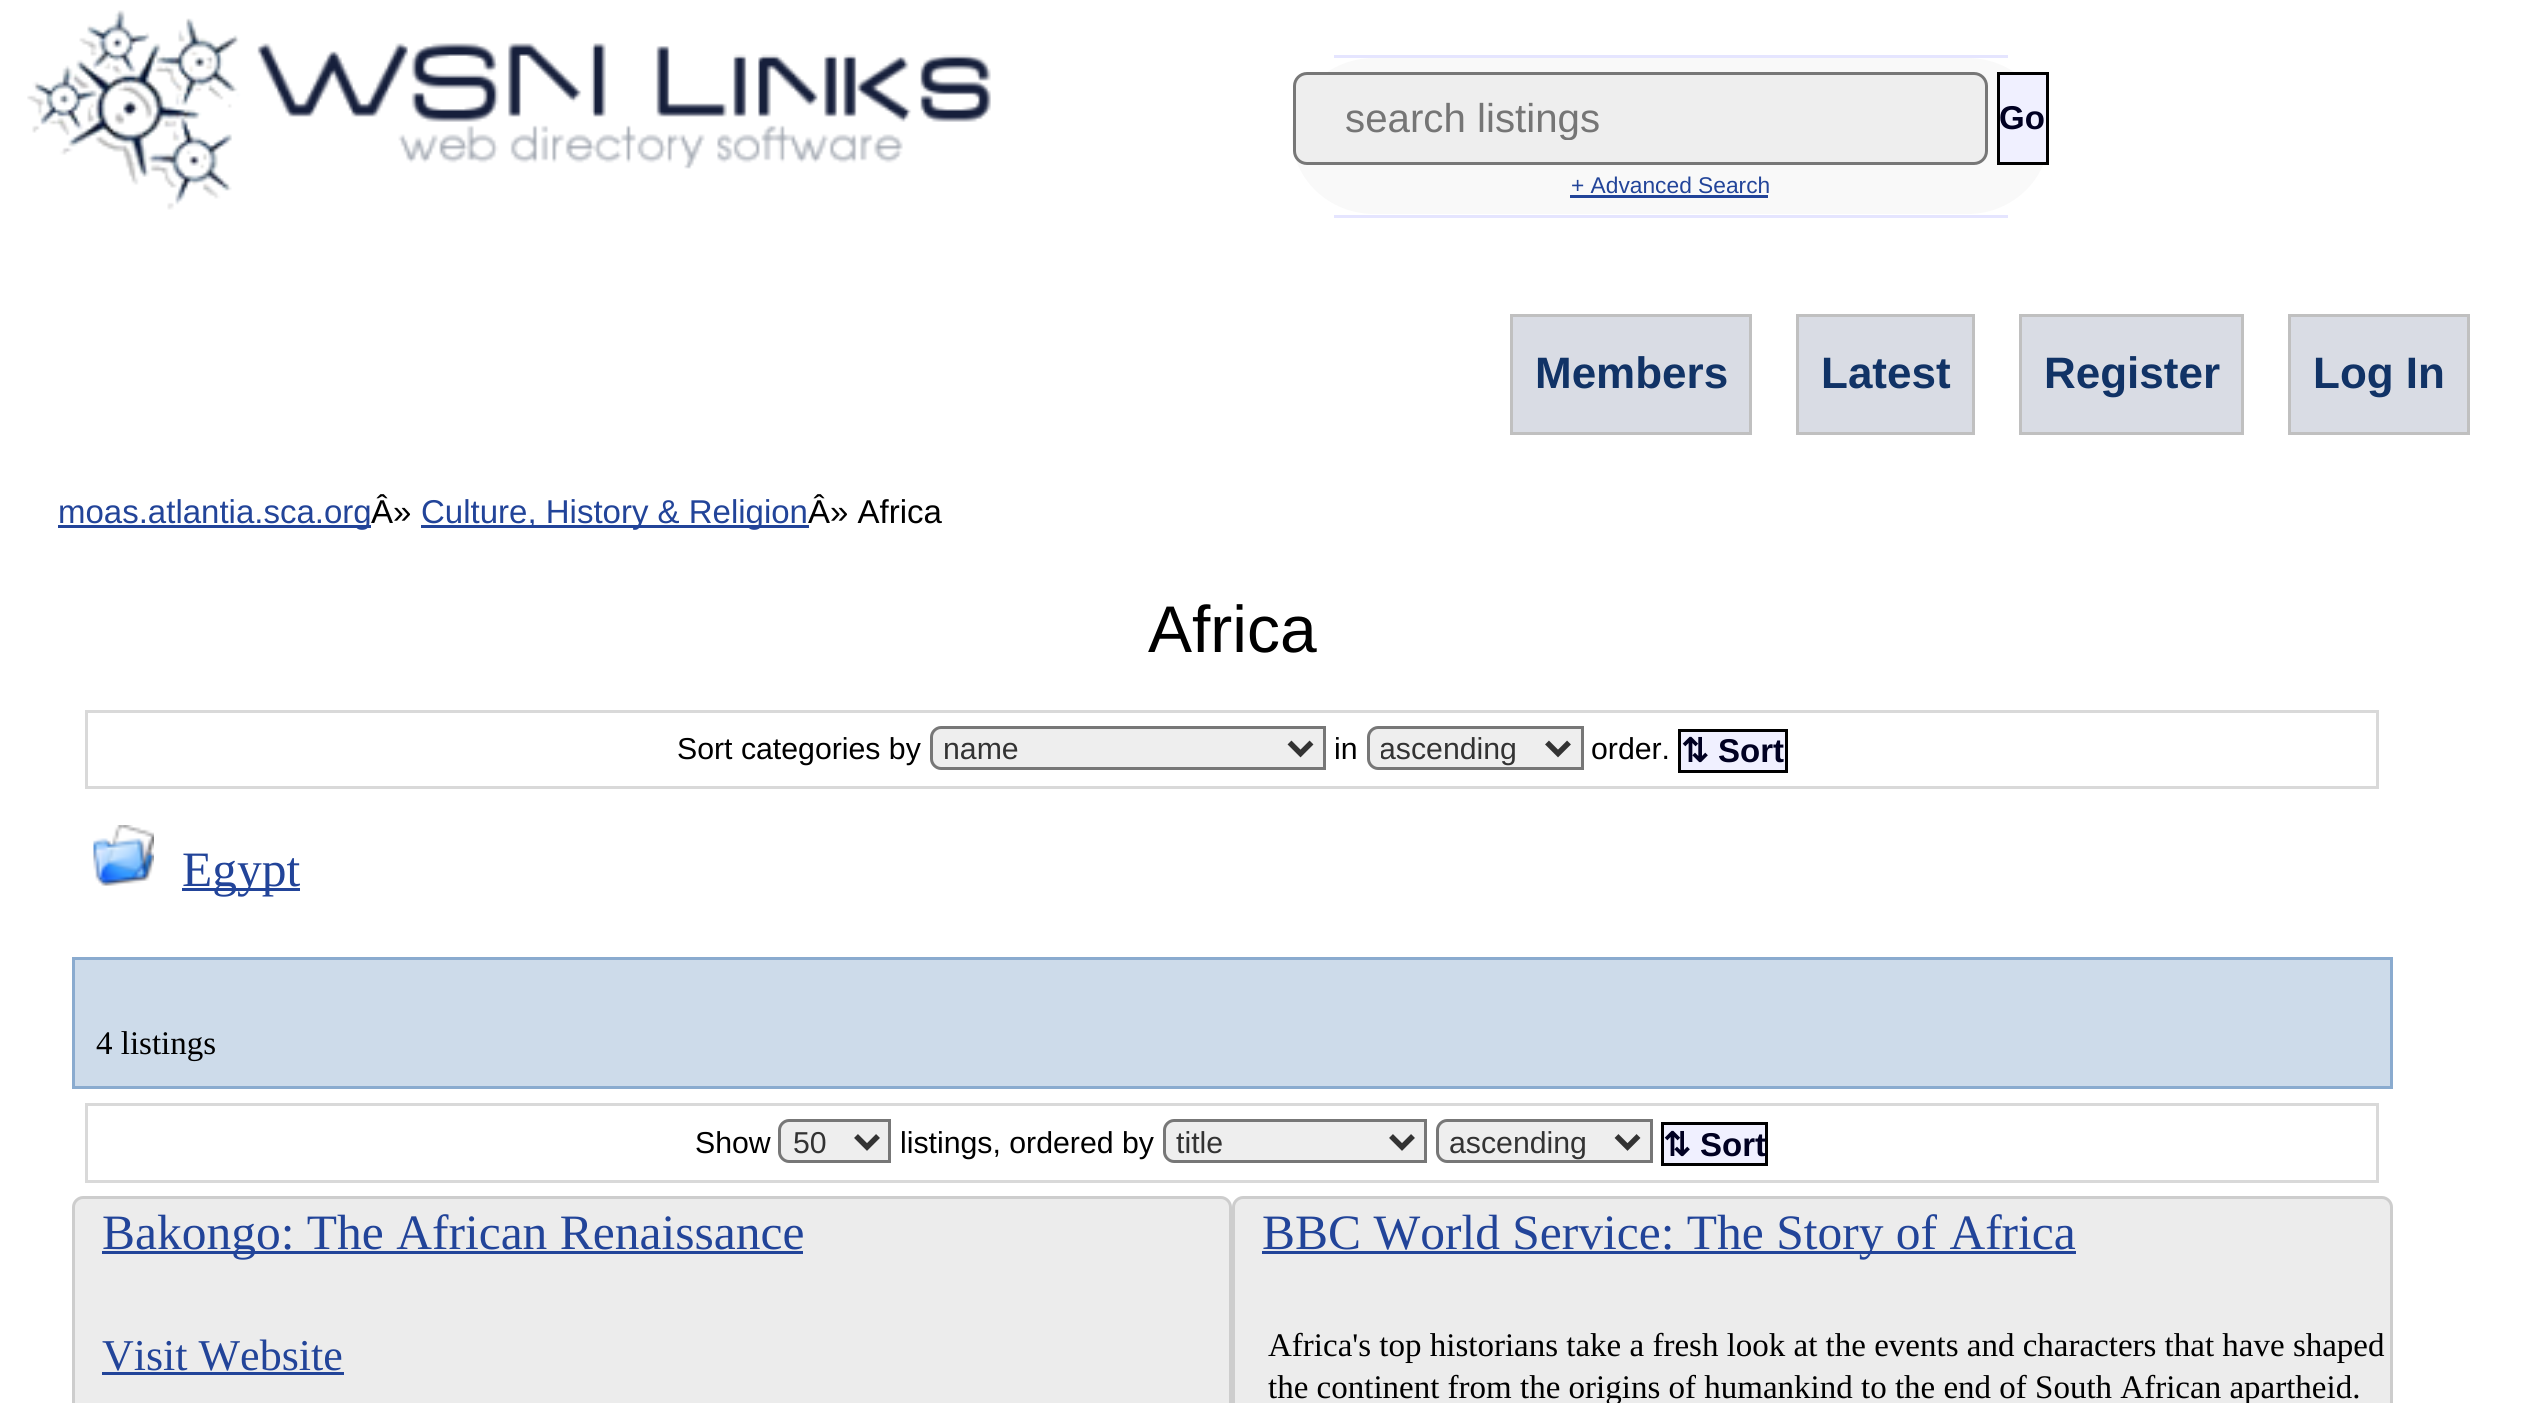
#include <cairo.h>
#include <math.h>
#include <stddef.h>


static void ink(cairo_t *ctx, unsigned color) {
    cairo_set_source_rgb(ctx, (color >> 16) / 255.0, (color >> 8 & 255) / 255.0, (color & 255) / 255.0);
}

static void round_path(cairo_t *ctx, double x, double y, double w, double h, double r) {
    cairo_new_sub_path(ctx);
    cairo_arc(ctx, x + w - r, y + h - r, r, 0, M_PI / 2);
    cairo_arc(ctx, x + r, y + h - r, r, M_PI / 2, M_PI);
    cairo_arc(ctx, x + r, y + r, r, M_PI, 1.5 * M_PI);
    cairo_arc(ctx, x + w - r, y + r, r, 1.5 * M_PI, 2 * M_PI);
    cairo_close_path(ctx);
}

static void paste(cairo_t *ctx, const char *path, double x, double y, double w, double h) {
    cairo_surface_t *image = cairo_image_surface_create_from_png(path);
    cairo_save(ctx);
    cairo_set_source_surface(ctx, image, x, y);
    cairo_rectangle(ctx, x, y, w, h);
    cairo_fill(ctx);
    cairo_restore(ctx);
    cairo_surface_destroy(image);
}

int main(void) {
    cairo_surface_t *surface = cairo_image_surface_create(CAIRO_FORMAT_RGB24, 2528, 1403);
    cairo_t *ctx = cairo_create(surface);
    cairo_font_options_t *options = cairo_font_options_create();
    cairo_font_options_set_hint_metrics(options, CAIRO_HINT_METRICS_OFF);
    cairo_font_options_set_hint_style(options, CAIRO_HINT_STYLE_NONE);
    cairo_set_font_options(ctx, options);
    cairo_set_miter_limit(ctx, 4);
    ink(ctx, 0xFFFFFF);
    cairo_paint(ctx);
    paste(ctx, "media/1.png", 27, 10, 964, 200);
    ink(ctx, 0xF9F9F9);
    cairo_new_path(ctx);
    cairo_move_to(ctx, 1374, 58);
    cairo_line_to(ctx, 1968, 58);
    cairo_curve_to(ctx, 2012, 58, 2049, 93, 2049, 136);
    cairo_curve_to(ctx, 2049, 179, 2012, 214, 1968, 214);
    cairo_line_to(ctx, 1374, 214);
    cairo_curve_to(ctx, 1329, 214, 1292, 179, 1292, 136);
    cairo_curve_to(ctx, 1292, 93, 1329, 58, 1374, 58);
    cairo_close_path(ctx);
    cairo_fill(ctx);
    ink(ctx, 0xE5E5FF);
    cairo_rectangle(ctx, 1334, 55, 674, 3);
    cairo_fill(ctx);
    cairo_rectangle(ctx, 1334, 215, 674, 3);
    cairo_fill(ctx);
    ink(ctx, 0xEEEEEE);
    round_path(ctx, 1294.5, 73.5, 692, 90, 12.5);
    cairo_fill_preserve(ctx);
    ink(ctx, 0x777777);
    cairo_set_line_width(ctx, 3);
    cairo_stroke(ctx);
    cairo_save(ctx);
    cairo_rectangle(ctx, 1345, 96, 597, 44);
    cairo_clip(ctx);
    cairo_select_font_face(ctx, "Liberation Sans", CAIRO_FONT_SLANT_NORMAL, CAIRO_FONT_WEIGHT_NORMAL);
    cairo_set_font_size(ctx, 40.25);
    ink(ctx, 0x757575);
    cairo_move_to(ctx, 1345, 132);
    cairo_show_text(ctx, "search listings");
    cairo_restore(ctx);
    ink(ctx, 0xF0F0FF);
    cairo_rectangle(ctx, 1998.5, 73.5, 49, 90);
    cairo_fill_preserve(ctx);
    ink(ctx, 0x000000);
    cairo_stroke(ctx);
    cairo_select_font_face(ctx, "Liberation Sans", CAIRO_FONT_SLANT_NORMAL, CAIRO_FONT_WEIGHT_BOLD);
    cairo_set_font_size(ctx, 33);
    ink(ctx, 0x000022);
    cairo_move_to(ctx, 1999, 129);
    cairo_show_text(ctx, "Go");
    cairo_select_font_face(ctx, "Liberation Sans", CAIRO_FONT_SLANT_NORMAL, CAIRO_FONT_WEIGHT_NORMAL);
    cairo_set_font_size(ctx, 22.75);
    ink(ctx, 0x224499);
    cairo_move_to(ctx, 1571, 193);
    cairo_show_text(ctx, "+ Advanced Search");
    cairo_rectangle(ctx, 1570, 195, 198, 3);
    cairo_fill(ctx);
    ink(ctx, 0xD9DCE4);
    cairo_rectangle(ctx, 1511.5, 315.5, 239, 118);
    cairo_fill_preserve(ctx);
    ink(ctx, 0xC0C0C0);
    cairo_stroke(ctx);
    cairo_select_font_face(ctx, "Liberation Sans", CAIRO_FONT_SLANT_NORMAL, CAIRO_FONT_WEIGHT_BOLD);
    cairo_set_font_size(ctx, 44);
    ink(ctx, 0x113366);
    cairo_move_to(ctx, 1535, 388);
    cairo_show_text(ctx, "Members");
    ink(ctx, 0xD9DCE4);
    cairo_rectangle(ctx, 1797.5, 315.5, 176, 118);
    cairo_fill_preserve(ctx);
    ink(ctx, 0xC0C0C0);
    cairo_stroke(ctx);
    ink(ctx, 0x113366);
    cairo_move_to(ctx, 1821, 388);
    cairo_show_text(ctx, "Latest");
    ink(ctx, 0xD9DCE4);
    cairo_rectangle(ctx, 2020.5, 315.5, 222, 118);
    cairo_fill_preserve(ctx);
    ink(ctx, 0xC0C0C0);
    cairo_stroke(ctx);
    ink(ctx, 0x113366);
    cairo_move_to(ctx, 2044, 388);
    cairo_show_text(ctx, "Register");
    ink(ctx, 0xD9DCE4);
    cairo_rectangle(ctx, 2289.5, 315.5, 179, 118);
    cairo_fill_preserve(ctx);
    ink(ctx, 0xC0C0C0);
    cairo_stroke(ctx);
    ink(ctx, 0x113366);
    cairo_move_to(ctx, 2313, 388);
    cairo_show_text(ctx, "Log In");
    ink(ctx, 0x224499);
    cairo_rectangle(ctx, 58, 525, 313, 3);
    cairo_fill(ctx);
    cairo_select_font_face(ctx, "Liberation Sans", CAIRO_FONT_SLANT_NORMAL, CAIRO_FONT_WEIGHT_NORMAL);
    cairo_set_font_size(ctx, 33);
    cairo_move_to(ctx, 58, 523);
    cairo_show_text(ctx, "moas.atlantia.sca.org");
    ink(ctx, 0x000000);
    cairo_move_to(ctx, 371, 523);
    cairo_show_text(ctx, "Â»");
    ink(ctx, 0x224499);
    cairo_rectangle(ctx, 421, 525, 388, 3);
    cairo_fill(ctx);
    cairo_move_to(ctx, 421, 523);
    cairo_show_text(ctx, "Culture, History & Religion");
    ink(ctx, 0x000000);
    cairo_move_to(ctx, 808, 523);
    cairo_show_text(ctx, "Â» Africa");
    cairo_set_font_size(ctx, 66);
    cairo_move_to(ctx, 1148, 652);
    cairo_show_text(ctx, "Africa");
    cairo_rectangle(ctx, 86.5, 711.5, 2291, 76);
    ink(ctx, 0xD9D9D9);
    cairo_stroke(ctx);
    cairo_set_font_size(ctx, 30.25);
    ink(ctx, 0x000000);
    cairo_move_to(ctx, 677, 759);
    cairo_show_text(ctx, "Sort categories by");
    ink(ctx, 0xEEEEEE);
    cairo_new_path(ctx);
    cairo_move_to(ctx, 941, 727.5);
    cairo_line_to(ctx, 1324.5, 727.5);
    cairo_line_to(ctx, 1324.5, 768.5);
    cairo_line_to(ctx, 941, 768.5);
    cairo_curve_to(ctx, 936, 768.5, 931.5, 764, 931.5, 759);
    cairo_line_to(ctx, 931.5, 737);
    cairo_curve_to(ctx, 931.5, 732, 936, 727.5, 941, 727.5);
    cairo_close_path(ctx);
    cairo_fill_preserve(ctx);
    ink(ctx, 0x777777);
    cairo_stroke(ctx);
    cairo_new_path(ctx);
    cairo_move_to(ctx, 1289.5, 742.5);
    cairo_line_to(ctx, 1300.5, 753.5);
    cairo_line_to(ctx, 1311.5, 742.5);
    ink(ctx, 0x333333);
    cairo_set_line_width(ctx, 5.5);
    cairo_stroke(ctx);
    cairo_move_to(ctx, 943, 759);
    cairo_show_text(ctx, "name");
    ink(ctx, 0x000000);
    cairo_move_to(ctx, 1334, 759);
    cairo_show_text(ctx, "in");
    ink(ctx, 0xEEEEEE);
    cairo_new_path(ctx);
    cairo_move_to(ctx, 1378, 727.5);
    cairo_line_to(ctx, 1582.5, 727.5);
    cairo_line_to(ctx, 1582.5, 768.5);
    cairo_line_to(ctx, 1378, 768.5);
    cairo_curve_to(ctx, 1373, 768.5, 1368.5, 764, 1368.5, 759);
    cairo_line_to(ctx, 1368.5, 737);
    cairo_curve_to(ctx, 1368.5, 732, 1373, 727.5, 1378, 727.5);
    cairo_close_path(ctx);
    cairo_fill_preserve(ctx);
    ink(ctx, 0x777777);
    cairo_set_line_width(ctx, 3);
    cairo_stroke(ctx);
    cairo_new_path(ctx);
    cairo_move_to(ctx, 1547, 742.5);
    cairo_line_to(ctx, 1558, 753.5);
    cairo_line_to(ctx, 1569, 742.5);
    ink(ctx, 0x333333);
    cairo_set_line_width(ctx, 5.5);
    cairo_stroke(ctx);
    cairo_save(ctx);
    cairo_rectangle(ctx, 1381, 729, 156, 38);
    cairo_clip(ctx);
    cairo_move_to(ctx, 1379, 759);
    cairo_show_text(ctx, "ascending");
    cairo_restore(ctx);
    ink(ctx, 0x000000);
    cairo_move_to(ctx, 1591, 759);
    cairo_show_text(ctx, "order.");
    ink(ctx, 0xF0F0FF);
    cairo_rectangle(ctx, 1679.5, 730.5, 107, 41);
    cairo_fill_preserve(ctx);
    ink(ctx, 0x000000);
    cairo_set_line_width(ctx, 3);
    cairo_stroke(ctx);
    cairo_select_font_face(ctx, "DejaVu Sans", CAIRO_FONT_SLANT_NORMAL, CAIRO_FONT_WEIGHT_BOLD);
    cairo_set_font_size(ctx, 33);
    ink(ctx, 0x000022);
    cairo_move_to(ctx, 1681, 762);
    cairo_show_text(ctx, "⇅");
    cairo_select_font_face(ctx, "Liberation Sans", CAIRO_FONT_SLANT_NORMAL, CAIRO_FONT_WEIGHT_BOLD);
    cairo_move_to(ctx, 1718, 762);
    cairo_show_text(ctx, "Sort");
    paste(ctx, "media/2.png", 93, 825, 61, 61);
    ink(ctx, 0x224499);
    cairo_rectangle(ctx, 182, 888, 118, 3);
    cairo_fill(ctx);
    cairo_select_font_face(ctx, "Liberation Serif", CAIRO_FONT_SLANT_NORMAL, CAIRO_FONT_WEIGHT_NORMAL);
    cairo_set_font_size(ctx, 49.5);
    cairo_move_to(ctx, 182, 886);
    cairo_show_text(ctx, "Egypt");
    ink(ctx, 0xCDDBEA);
    cairo_rectangle(ctx, 73.5, 958.5, 2318, 129);
    cairo_fill_preserve(ctx);
    ink(ctx, 0x8AABCF);
    cairo_stroke(ctx);
    cairo_set_font_size(ctx, 33);
    ink(ctx, 0x000000);
    cairo_move_to(ctx, 96, 1054);
    cairo_show_text(ctx, "4 listings");
    cairo_rectangle(ctx, 86.5, 1104.5, 2291, 77);
    ink(ctx, 0xD9D9D9);
    cairo_stroke(ctx);
    cairo_select_font_face(ctx, "Liberation Sans", CAIRO_FONT_SLANT_NORMAL, CAIRO_FONT_WEIGHT_NORMAL);
    cairo_set_font_size(ctx, 30.25);
    ink(ctx, 0x000000);
    cairo_move_to(ctx, 695, 1153);
    cairo_show_text(ctx, "Show");
    ink(ctx, 0xEEEEEE);
    cairo_new_path(ctx);
    cairo_move_to(ctx, 789, 1120.5);
    cairo_line_to(ctx, 889.5, 1120.5);
    cairo_line_to(ctx, 889.5, 1161.5);
    cairo_line_to(ctx, 789, 1161.5);
    cairo_curve_to(ctx, 784, 1161.5, 779.5, 1157, 779.5, 1152);
    cairo_line_to(ctx, 779.5, 1130);
    cairo_curve_to(ctx, 779.5, 1125, 784, 1120.5, 789, 1120.5);
    cairo_close_path(ctx);
    cairo_fill_preserve(ctx);
    ink(ctx, 0x777777);
    cairo_stroke(ctx);
    cairo_new_path(ctx);
    cairo_move_to(ctx, 856, 1136);
    cairo_line_to(ctx, 867, 1147);
    cairo_line_to(ctx, 878, 1136);
    ink(ctx, 0x333333);
    cairo_set_line_width(ctx, 5.5);
    cairo_stroke(ctx);
    cairo_move_to(ctx, 793, 1153);
    cairo_show_text(ctx, "50");
    ink(ctx, 0x000000);
    cairo_move_to(ctx, 900, 1153);
    cairo_show_text(ctx, "listings, ordered by");
    ink(ctx, 0xEEEEEE);
    cairo_new_path(ctx);
    cairo_move_to(ctx, 1174, 1120.5);
    cairo_line_to(ctx, 1425.5, 1120.5);
    cairo_line_to(ctx, 1425.5, 1161.5);
    cairo_line_to(ctx, 1174, 1161.5);
    cairo_curve_to(ctx, 1169, 1161.5, 1164.5, 1157, 1164.5, 1152);
    cairo_line_to(ctx, 1164.5, 1130);
    cairo_curve_to(ctx, 1164.5, 1125, 1169, 1120.5, 1174, 1120.5);
    cairo_close_path(ctx);
    cairo_fill_preserve(ctx);
    ink(ctx, 0x777777);
    cairo_set_line_width(ctx, 3);
    cairo_stroke(ctx);
    cairo_new_path(ctx);
    cairo_move_to(ctx, 1391, 1136);
    cairo_line_to(ctx, 1402, 1147);
    cairo_line_to(ctx, 1413, 1136);
    ink(ctx, 0x333333);
    cairo_set_line_width(ctx, 5.5);
    cairo_stroke(ctx);
    cairo_move_to(ctx, 1176, 1153);
    cairo_show_text(ctx, "title");
    ink(ctx, 0xEEEEEE);
    cairo_new_path(ctx);
    cairo_move_to(ctx, 1447, 1120.5);
    cairo_line_to(ctx, 1651.5, 1120.5);
    cairo_line_to(ctx, 1651.5, 1161.5);
    cairo_line_to(ctx, 1447, 1161.5);
    cairo_curve_to(ctx, 1442, 1161.5, 1437.5, 1157, 1437.5, 1152);
    cairo_line_to(ctx, 1437.5, 1130);
    cairo_curve_to(ctx, 1437.5, 1125, 1442, 1120.5, 1447, 1120.5);
    cairo_close_path(ctx);
    cairo_fill_preserve(ctx);
    ink(ctx, 0x777777);
    cairo_set_line_width(ctx, 3);
    cairo_stroke(ctx);
    cairo_new_path(ctx);
    cairo_move_to(ctx, 1616.5, 1136);
    cairo_line_to(ctx, 1627.5, 1147);
    cairo_line_to(ctx, 1638.5, 1136);
    ink(ctx, 0x333333);
    cairo_set_line_width(ctx, 5.5);
    cairo_stroke(ctx);
    cairo_move_to(ctx, 1449, 1153);
    cairo_show_text(ctx, "ascending");
    ink(ctx, 0xF0F0FF);
    cairo_rectangle(ctx, 1662.5, 1123.5, 104, 41);
    cairo_fill_preserve(ctx);
    ink(ctx, 0x000000);
    cairo_set_line_width(ctx, 3);
    cairo_stroke(ctx);
    cairo_select_font_face(ctx, "DejaVu Sans", CAIRO_FONT_SLANT_NORMAL, CAIRO_FONT_WEIGHT_BOLD);
    cairo_set_font_size(ctx, 33);
    ink(ctx, 0x000022);
    cairo_move_to(ctx, 1663, 1156);
    cairo_show_text(ctx, "⇅");
    cairo_select_font_face(ctx, "Liberation Sans", CAIRO_FONT_SLANT_NORMAL, CAIRO_FONT_WEIGHT_BOLD);
    cairo_move_to(ctx, 1700, 1156);
    cairo_show_text(ctx, "Sort");
    ink(ctx, 0xECECEC);
    cairo_new_path(ctx);
    cairo_move_to(ctx, 83, 1197.5);
    cairo_line_to(ctx, 1221, 1197.5);
    cairo_curve_to(ctx, 1226, 1197.5, 1230.5, 1202, 1230.5, 1207);
    cairo_line_to(ctx, 1230.5, 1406);
    cairo_curve_to(ctx, 1230.5, 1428, 1213, 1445.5, 1191, 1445.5);
    cairo_line_to(ctx, 113, 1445.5);
    cairo_curve_to(ctx, 91, 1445.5, 73.5, 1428, 73.5, 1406);
    cairo_line_to(ctx, 73.5, 1207);
    cairo_curve_to(ctx, 73.5, 1202, 78, 1197.5, 83, 1197.5);
    cairo_close_path(ctx);
    cairo_fill_preserve(ctx);
    ink(ctx, 0xCDCDCD);
    cairo_stroke(ctx);
    ink(ctx, 0x224499);
    cairo_rectangle(ctx, 102, 1251, 701, 3);
    cairo_fill(ctx);
    cairo_select_font_face(ctx, "Liberation Serif", CAIRO_FONT_SLANT_NORMAL, CAIRO_FONT_WEIGHT_NORMAL);
    cairo_set_font_size(ctx, 49.5);
    cairo_move_to(ctx, 102, 1249);
    cairo_show_text(ctx, "Bakongo: The African Renaissance");
    cairo_set_font_size(ctx, 44);
    cairo_move_to(ctx, 102, 1370);
    cairo_show_text(ctx, "Visit Website");
    cairo_rectangle(ctx, 102, 1372, 242, 3);
    cairo_fill(ctx);
    ink(ctx, 0xECECEC);
    cairo_new_path(ctx);
    cairo_move_to(ctx, 1243, 1197.5);
    cairo_line_to(ctx, 2382, 1197.5);
    cairo_curve_to(ctx, 2387, 1197.5, 2391.5, 1202, 2391.5, 1207);
    cairo_line_to(ctx, 2391.5, 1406);
    cairo_curve_to(ctx, 2391.5, 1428, 2374, 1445.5, 2352, 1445.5);
    cairo_line_to(ctx, 1273, 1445.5);
    cairo_curve_to(ctx, 1251, 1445.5, 1233.5, 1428, 1233.5, 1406);
    cairo_line_to(ctx, 1233.5, 1207);
    cairo_curve_to(ctx, 1233.5, 1202, 1238, 1197.5, 1243, 1197.5);
    cairo_close_path(ctx);
    cairo_fill_preserve(ctx);
    ink(ctx, 0xCDCDCD);
    cairo_stroke(ctx);
    ink(ctx, 0x224499);
    cairo_rectangle(ctx, 1262, 1251, 814, 3);
    cairo_fill(ctx);
    cairo_set_font_size(ctx, 49.5);
    cairo_move_to(ctx, 1262, 1249);
    cairo_show_text(ctx, "BBC World Service: The Story of Africa");
    cairo_set_font_size(ctx, 33);
    ink(ctx, 0x000000);
    cairo_move_to(ctx, 1268, 1356);
    cairo_show_text(ctx, "Africa's top historians take a fresh look at the events and characters that have shaped");
    cairo_move_to(ctx, 1268, 1398);
    cairo_show_text(ctx, "the continent from the origins of humankind to the end of South African apartheid.");
    cairo_surface_write_to_png(surface, "image.png");
    cairo_font_options_destroy(options);
    cairo_destroy(ctx);
    cairo_surface_destroy(surface);
    return 0;
}
